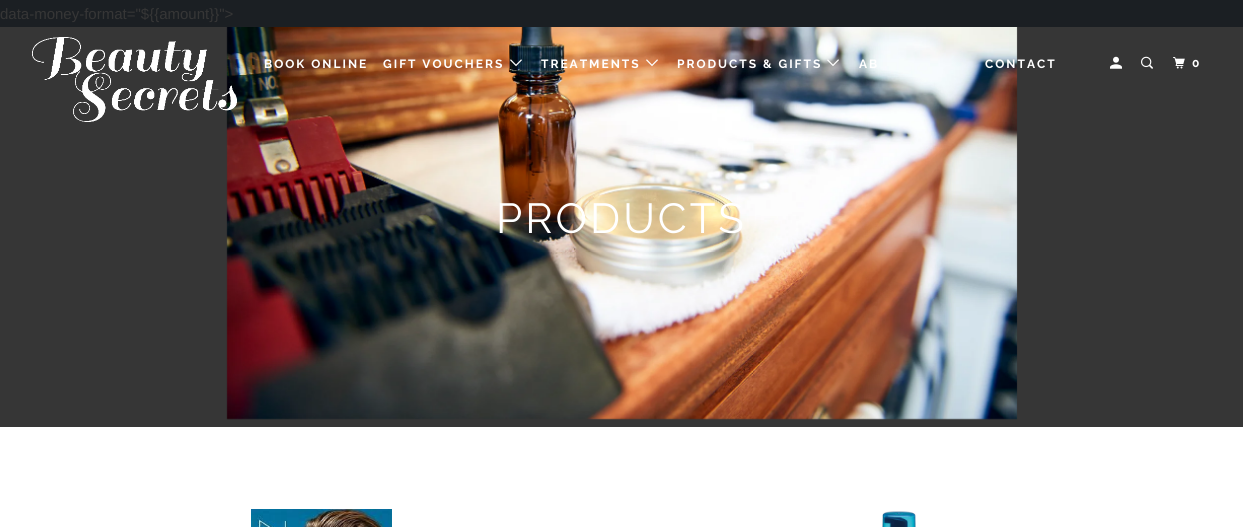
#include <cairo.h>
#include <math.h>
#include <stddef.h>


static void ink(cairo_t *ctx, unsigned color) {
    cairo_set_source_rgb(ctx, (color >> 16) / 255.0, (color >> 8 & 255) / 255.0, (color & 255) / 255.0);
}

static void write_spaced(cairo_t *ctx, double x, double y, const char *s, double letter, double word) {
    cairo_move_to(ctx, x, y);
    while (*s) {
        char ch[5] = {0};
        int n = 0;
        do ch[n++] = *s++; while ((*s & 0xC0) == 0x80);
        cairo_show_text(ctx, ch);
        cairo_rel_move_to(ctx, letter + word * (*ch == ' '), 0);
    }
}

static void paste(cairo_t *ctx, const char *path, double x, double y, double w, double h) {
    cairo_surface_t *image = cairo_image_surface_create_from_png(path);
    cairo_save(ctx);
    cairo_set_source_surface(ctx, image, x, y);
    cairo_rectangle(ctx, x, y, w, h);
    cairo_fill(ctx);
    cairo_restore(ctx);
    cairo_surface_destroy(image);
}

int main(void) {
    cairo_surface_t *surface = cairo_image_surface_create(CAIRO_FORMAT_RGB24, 1243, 527);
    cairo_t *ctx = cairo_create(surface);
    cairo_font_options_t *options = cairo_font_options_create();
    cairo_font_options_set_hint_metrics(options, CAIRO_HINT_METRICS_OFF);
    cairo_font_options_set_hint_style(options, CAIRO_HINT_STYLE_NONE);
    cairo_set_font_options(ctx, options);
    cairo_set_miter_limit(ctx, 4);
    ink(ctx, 0x1B1F23);
    cairo_paint(ctx);
    cairo_select_font_face(ctx, "Liberation Sans", CAIRO_FONT_SLANT_NORMAL, CAIRO_FONT_WEIGHT_NORMAL);
    cairo_set_font_size(ctx, 15);
    ink(ctx, 0x363636);
    cairo_move_to(ctx, 0, 19);
    cairo_show_text(ctx, "data-money-format=\"${{amount}}\">");
    ink(ctx, 0xFFFFFF);
    cairo_rectangle(ctx, 0, 427, 1243, 100);
    cairo_fill(ctx);
    ink(ctx, 0x363636);
    cairo_rectangle(ctx, 0, 27, 1243, 400);
    cairo_fill(ctx);
    paste(ctx, "media/8.png", 226, 27, 792, 393);
    paste(ctx, "media/1.png", 32, 37, 205, 85);
    cairo_select_font_face(ctx, "Raleway", CAIRO_FONT_SLANT_NORMAL, CAIRO_FONT_WEIGHT_BOLD);
    cairo_set_font_size(ctx, 12);
    ink(ctx, 0xFFFFFF);
    write_spaced(ctx, 264, 68, "BOOK ONLINE", 2, 0);
    write_spaced(ctx, 383, 68, "GIFT VOUCHERS", 2, 0);
    paste(ctx, "media/2.png", 510, 59, 12, 8);
    write_spaced(ctx, 541, 68, "TREATMENTS", 2, 0);
    paste(ctx, "media/3.png", 646, 59, 12, 8);
    write_spaced(ctx, 677, 68, "PRODUCTS & GIFTS", 2, 0);
    paste(ctx, "media/4.png", 827, 59, 12, 7);
    write_spaced(ctx, 859, 68, "AB", 2, 0);
    write_spaced(ctx, 985, 68, "CONTACT", 2, 0);
    paste(ctx, "media/5.png", 1110, 56, 12, 13);
    paste(ctx, "media/6.png", 1141, 56, 12, 13);
    paste(ctx, "media/7.png", 1173, 57, 12, 12);
    write_spaced(ctx, 1192, 67, "0", 2, 0);
    cairo_select_font_face(ctx, "Raleway", CAIRO_FONT_SLANT_NORMAL, CAIRO_FONT_WEIGHT_NORMAL);
    cairo_set_font_size(ctx, 42);
    write_spaced(ctx, 496, 233, "PRODUCTS", 3, 0);
    paste(ctx, "media/9.png", 251, 509, 141, 18);
    paste(ctx, "media/10.png", 882, 511, 34, 16);
    cairo_surface_write_to_png(surface, "image.png");
    cairo_font_options_destroy(options);
    cairo_destroy(ctx);
    cairo_surface_destroy(surface);
    return 0;
}
